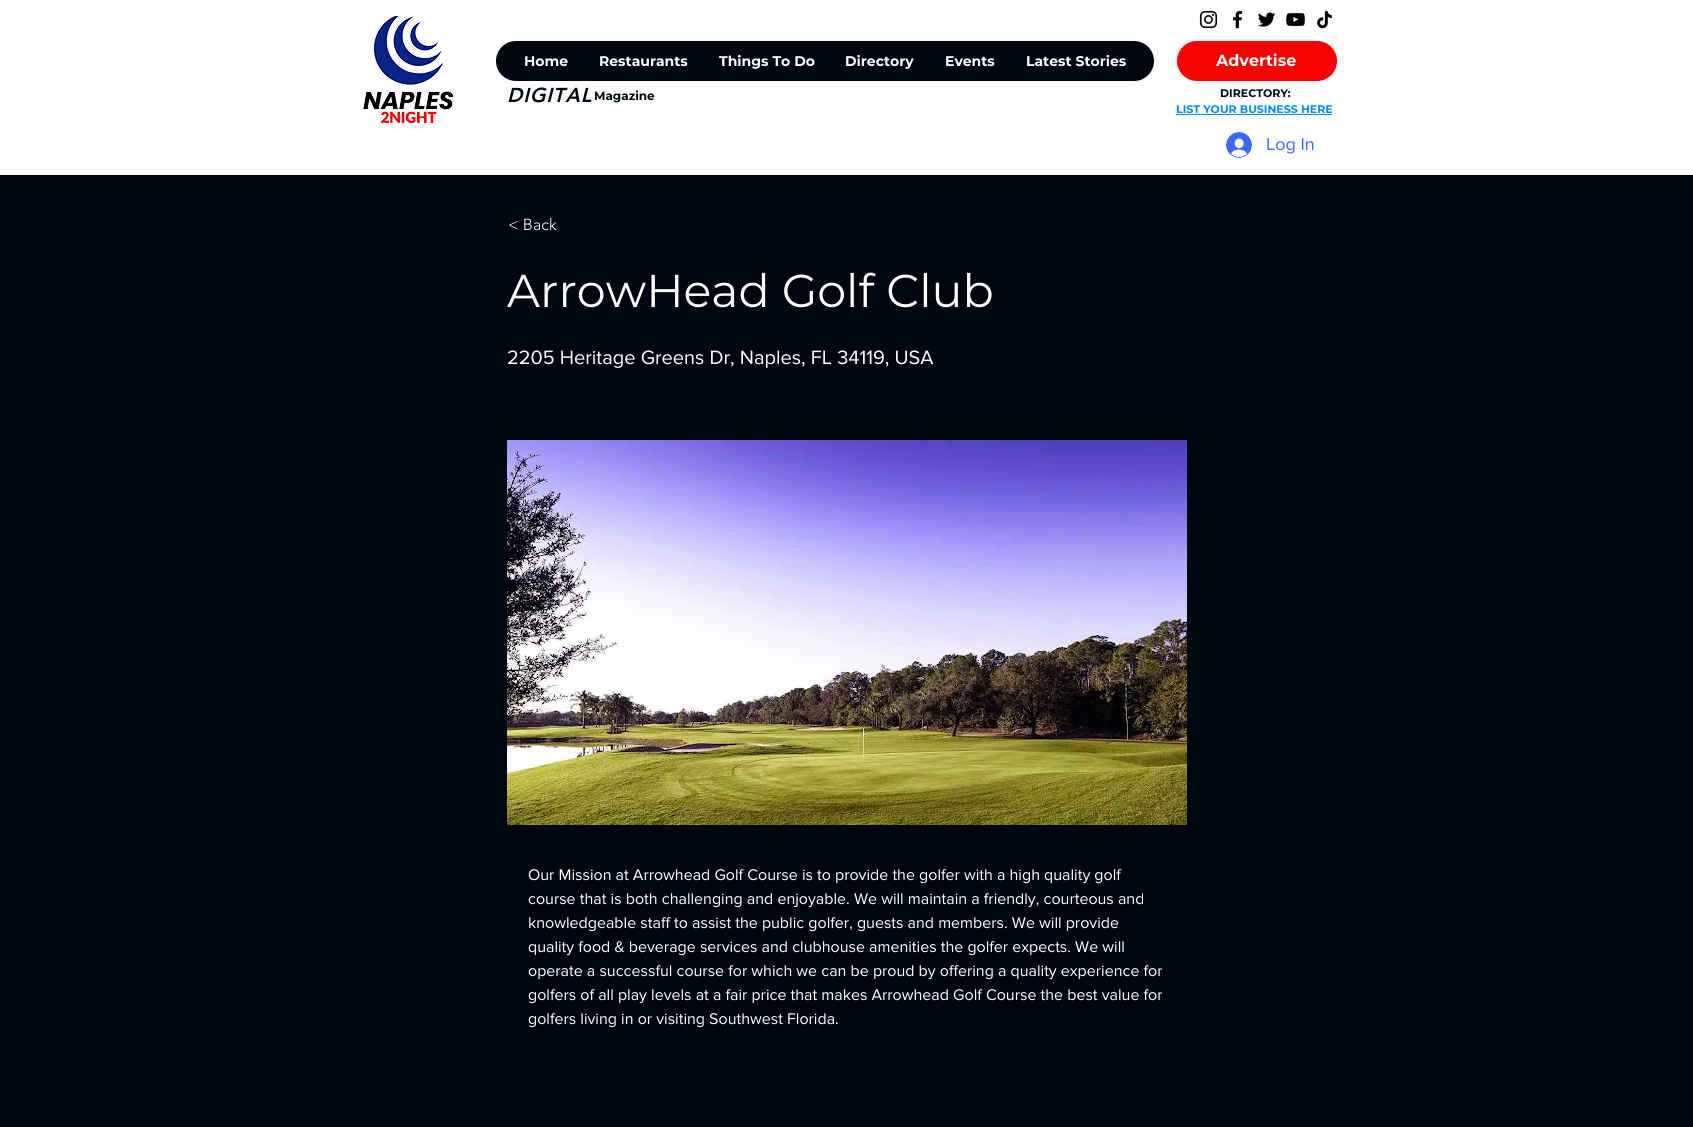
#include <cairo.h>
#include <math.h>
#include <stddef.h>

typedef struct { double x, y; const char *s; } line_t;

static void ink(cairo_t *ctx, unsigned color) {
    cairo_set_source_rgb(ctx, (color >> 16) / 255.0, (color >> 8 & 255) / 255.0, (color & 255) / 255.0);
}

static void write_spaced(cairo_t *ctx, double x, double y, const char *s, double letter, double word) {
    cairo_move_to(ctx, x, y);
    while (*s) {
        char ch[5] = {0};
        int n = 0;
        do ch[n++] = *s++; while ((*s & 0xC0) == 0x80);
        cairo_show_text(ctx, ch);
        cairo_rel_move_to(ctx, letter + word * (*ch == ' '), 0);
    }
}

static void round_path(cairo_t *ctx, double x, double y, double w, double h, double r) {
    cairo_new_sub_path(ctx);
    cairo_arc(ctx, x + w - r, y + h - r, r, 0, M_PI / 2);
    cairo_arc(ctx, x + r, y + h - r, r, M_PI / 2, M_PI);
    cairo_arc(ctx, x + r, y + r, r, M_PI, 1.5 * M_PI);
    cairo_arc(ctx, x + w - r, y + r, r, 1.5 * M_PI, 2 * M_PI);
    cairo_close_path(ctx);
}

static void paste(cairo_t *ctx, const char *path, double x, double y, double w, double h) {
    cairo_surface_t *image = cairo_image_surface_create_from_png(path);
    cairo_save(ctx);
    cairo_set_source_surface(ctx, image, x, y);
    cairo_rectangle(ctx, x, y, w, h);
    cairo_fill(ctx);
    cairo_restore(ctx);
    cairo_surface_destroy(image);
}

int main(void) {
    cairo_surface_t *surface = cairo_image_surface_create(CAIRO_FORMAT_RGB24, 1693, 1127);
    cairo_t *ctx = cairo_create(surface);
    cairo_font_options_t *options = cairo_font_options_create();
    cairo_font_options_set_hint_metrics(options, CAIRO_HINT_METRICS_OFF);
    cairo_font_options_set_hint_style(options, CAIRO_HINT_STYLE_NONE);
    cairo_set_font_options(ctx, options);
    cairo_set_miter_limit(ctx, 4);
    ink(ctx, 0x00060F);
    cairo_paint(ctx);
    ink(ctx, 0xFFFFFF);
    cairo_rectangle(ctx, 0, 0, 1693, 175);
    cairo_fill(ctx);
    paste(ctx, "media/1.png", 363, 16, 91, 107);
    paste(ctx, "media/2.png", 1199, 10, 19, 19);
    paste(ctx, "media/3.png", 1232, 10, 11, 19);
    paste(ctx, "media/4.png", 1258, 12, 18, 15);
    paste(ctx, "media/5.png", 1286, 13, 19, 14);
    paste(ctx, "media/6.png", 1317, 10, 15, 19);
    ink(ctx, 0x00060F);
    round_path(ctx, 496, 41, 658, 40, 20);
    cairo_fill(ctx);
    cairo_select_font_face(ctx, "Montserrat", CAIRO_FONT_SLANT_NORMAL, CAIRO_FONT_WEIGHT_BOLD);
    cairo_set_font_size(ctx, 14);
    ink(ctx, 0xFFFFFF);
    {
        static const line_t items[] = {
            {524, 66, "Home"},
            {599, 66, "Restaurants"},
            {719, 66, "Things To Do"},
            {845, 66, "Directory"},
            {945, 66, "Events"},
            {1026, 66, "Latest Stories"},
        };
        for (size_t i = 0; i < sizeof items / sizeof *items; i++) {
            cairo_move_to(ctx, items[i].x, items[i].y);
            cairo_show_text(ctx, items[i].s);
        }
    }
    ink(ctx, 0xF70202);
    round_path(ctx, 1177, 41, 160, 40, 20);
    cairo_fill(ctx);
    cairo_set_font_size(ctx, 16);
    ink(ctx, 0xFFFFFF);
    cairo_move_to(ctx, 1216, 66);
    cairo_show_text(ctx, "Advertise");
    cairo_select_font_face(ctx, "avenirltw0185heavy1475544 Black", CAIRO_FONT_SLANT_ITALIC, CAIRO_FONT_WEIGHT_NORMAL);
    cairo_set_font_size(ctx, 20);
    ink(ctx, 0x00060F);
    write_spaced(ctx, 507, 102, "DIGITAL", 1, 0);
    cairo_select_font_face(ctx, "Montserrat", CAIRO_FONT_SLANT_NORMAL, CAIRO_FONT_WEIGHT_BOLD);
    cairo_set_font_size(ctx, 12);
    cairo_move_to(ctx, 594, 100);
    cairo_show_text(ctx, "Magazine");
    cairo_set_font_size(ctx, 11);
    cairo_move_to(ctx, 1220, 97);
    cairo_show_text(ctx, "DIRECTORY:");
    ink(ctx, 0x0089FA);
    cairo_move_to(ctx, 1176, 113);
    cairo_show_text(ctx, "LIST YOUR BUSINESS HERE");
    cairo_rectangle(ctx, 1176, 114, 156, 1);
    cairo_fill(ctx);
    paste(ctx, "media/7.png", 1226, 132, 26, 26);
    cairo_select_font_face(ctx, "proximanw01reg", CAIRO_FONT_SLANT_NORMAL, CAIRO_FONT_WEIGHT_NORMAL);
    cairo_set_font_size(ctx, 18);
    ink(ctx, 0x3A6AFD);
    cairo_move_to(ctx, 1266, 150);
    cairo_show_text(ctx, "Log In");
    cairo_select_font_face(ctx, "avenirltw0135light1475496 Light", CAIRO_FONT_SLANT_NORMAL, CAIRO_FONT_WEIGHT_NORMAL);
    cairo_set_font_size(ctx, 16);
    ink(ctx, 0xFFFFFF);
    cairo_move_to(ctx, 508, 230);
    cairo_show_text(ctx, "< Back");
    cairo_select_font_face(ctx, "Montserrat", CAIRO_FONT_SLANT_NORMAL, CAIRO_FONT_WEIGHT_NORMAL);
    cairo_set_font_size(ctx, 46);
    cairo_move_to(ctx, 507, 307);
    cairo_show_text(ctx, "ArrowHead Golf Club");
    cairo_select_font_face(ctx, "proximanw01reg", CAIRO_FONT_SLANT_NORMAL, CAIRO_FONT_WEIGHT_NORMAL);
    cairo_set_font_size(ctx, 20);
    cairo_move_to(ctx, 507, 364);
    cairo_show_text(ctx, "2205 Heritage Greens Dr, Naples, FL 34119, USA");
    paste(ctx, "media/8.png", 507, 440, 680, 385);
    cairo_set_font_size(ctx, 16);
    {
        static const line_t items[] = {
            {528, 880, "Our Mission at Arrowhead Golf Course is to provide the golfer with a high quality golf"},
            {528, 904, "course that is both challenging and enjoyable. We will maintain a friendly, courteous and"},
            {528, 928, "knowledgeable staff to assist the public golfer, guests and members. We will provide"},
            {528, 952, "quality food & beverage services and clubhouse amenities the golfer expects. We will"},
            {528, 976, "operate a successful course for which we can be proud by offering a quality experience for"},
            {528, 1000, "golfers of all play levels at a fair price that makes Arrowhead Golf Course the best value for"},
            {528, 1024, "golfers living in or visiting Southwest Florida."},
        };
        for (size_t i = 0; i < sizeof items / sizeof *items; i++) {
            cairo_move_to(ctx, items[i].x, items[i].y);
            cairo_show_text(ctx, items[i].s);
        }
    }
    cairo_surface_write_to_png(surface, "image.png");
    cairo_font_options_destroy(options);
    cairo_destroy(ctx);
    cairo_surface_destroy(surface);
    return 0;
}
